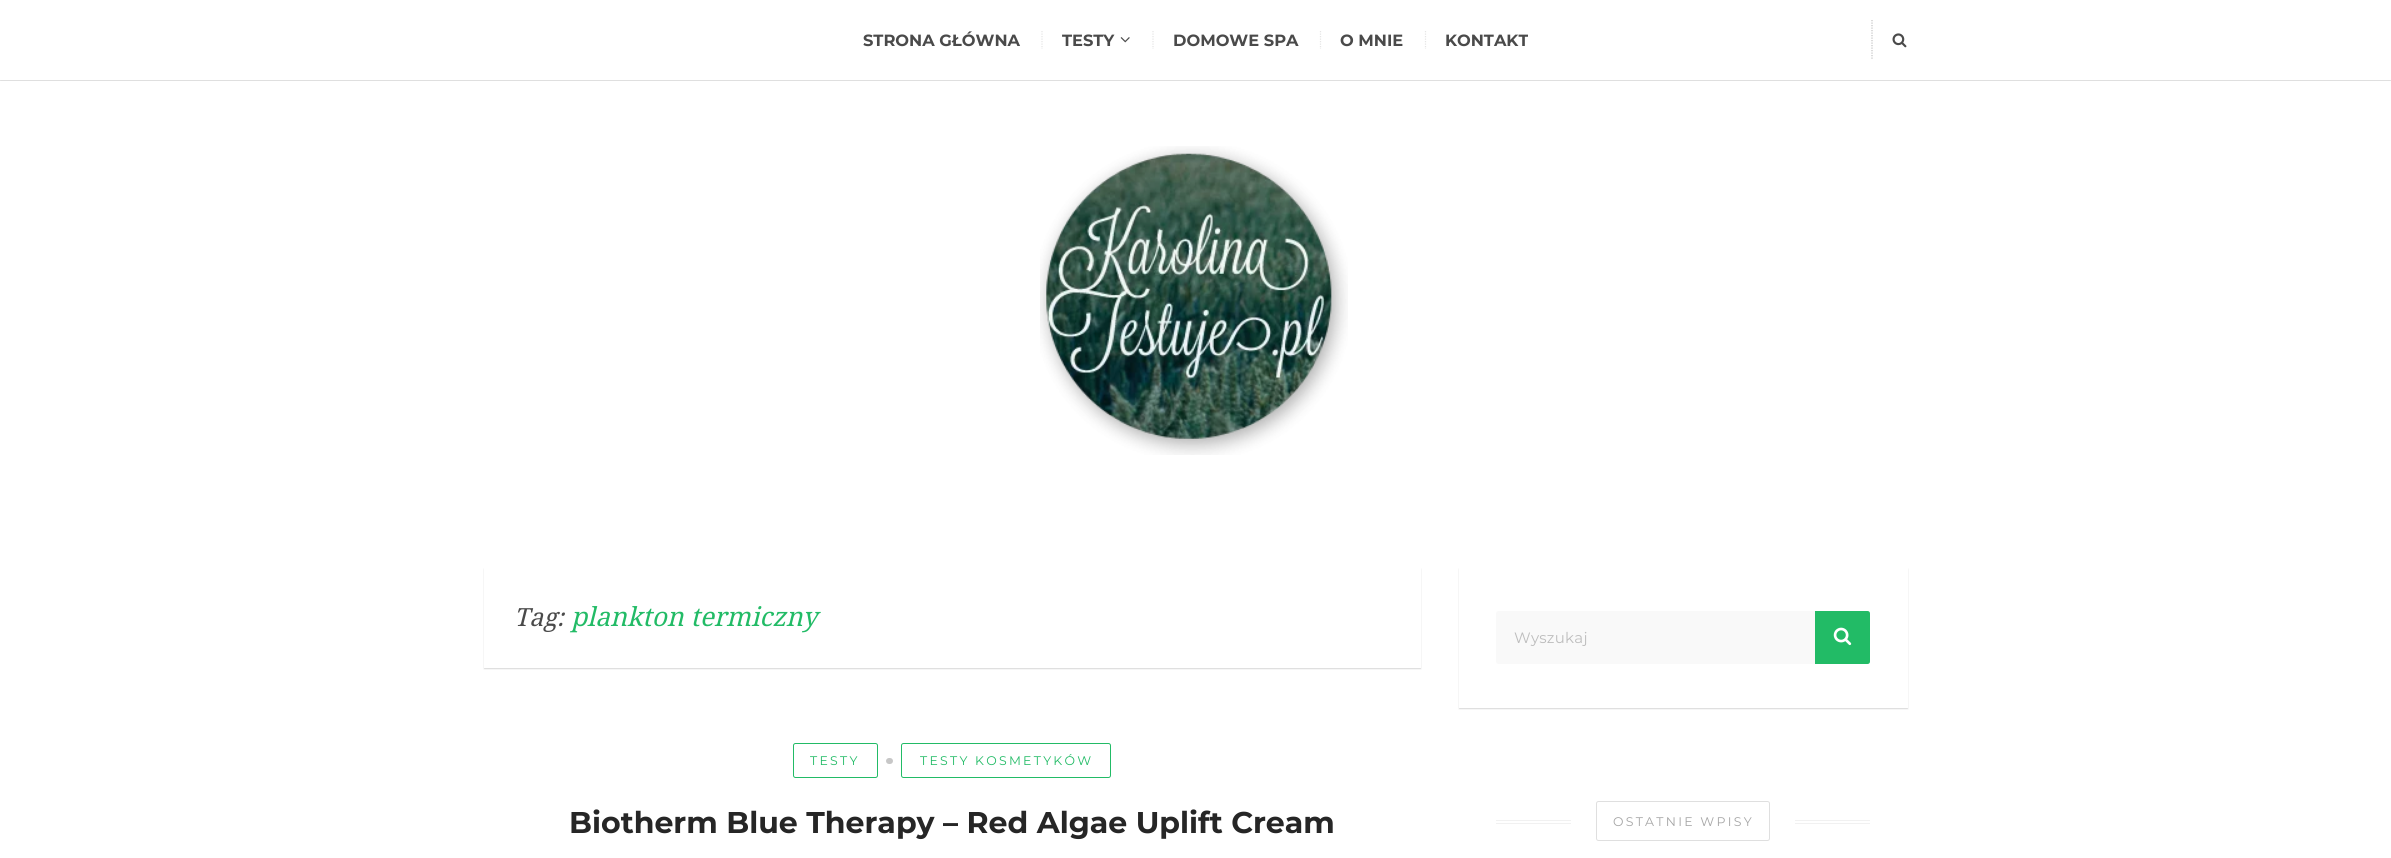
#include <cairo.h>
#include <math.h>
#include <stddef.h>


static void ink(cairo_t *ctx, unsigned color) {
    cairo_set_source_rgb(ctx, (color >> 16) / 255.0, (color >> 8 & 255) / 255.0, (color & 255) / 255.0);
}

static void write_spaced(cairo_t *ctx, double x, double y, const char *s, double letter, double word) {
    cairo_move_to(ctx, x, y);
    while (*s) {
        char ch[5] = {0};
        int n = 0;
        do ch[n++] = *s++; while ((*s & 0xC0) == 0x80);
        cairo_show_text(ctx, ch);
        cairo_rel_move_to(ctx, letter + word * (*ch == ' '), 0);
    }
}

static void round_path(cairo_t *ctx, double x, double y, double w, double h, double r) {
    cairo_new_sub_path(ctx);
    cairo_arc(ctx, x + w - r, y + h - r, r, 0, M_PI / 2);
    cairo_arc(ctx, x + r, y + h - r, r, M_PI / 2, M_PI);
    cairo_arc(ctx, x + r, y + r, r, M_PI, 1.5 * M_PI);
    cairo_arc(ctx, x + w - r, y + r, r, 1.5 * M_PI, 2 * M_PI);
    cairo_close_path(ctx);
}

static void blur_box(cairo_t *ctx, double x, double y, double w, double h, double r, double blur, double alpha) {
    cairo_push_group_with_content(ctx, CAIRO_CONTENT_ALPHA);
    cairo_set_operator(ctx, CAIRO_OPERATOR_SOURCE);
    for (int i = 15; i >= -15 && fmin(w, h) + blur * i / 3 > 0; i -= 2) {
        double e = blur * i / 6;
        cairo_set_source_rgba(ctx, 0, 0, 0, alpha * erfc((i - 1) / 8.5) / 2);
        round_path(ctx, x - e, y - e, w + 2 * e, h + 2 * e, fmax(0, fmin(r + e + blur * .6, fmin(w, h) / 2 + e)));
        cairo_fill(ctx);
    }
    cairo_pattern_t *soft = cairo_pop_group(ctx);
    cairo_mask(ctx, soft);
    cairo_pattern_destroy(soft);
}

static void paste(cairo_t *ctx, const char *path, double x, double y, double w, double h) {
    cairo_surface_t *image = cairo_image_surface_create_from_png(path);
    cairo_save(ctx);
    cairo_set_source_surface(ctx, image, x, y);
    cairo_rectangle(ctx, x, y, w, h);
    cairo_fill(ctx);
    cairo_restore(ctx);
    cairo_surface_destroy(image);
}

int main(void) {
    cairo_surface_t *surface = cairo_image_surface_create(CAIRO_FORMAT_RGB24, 2391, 858);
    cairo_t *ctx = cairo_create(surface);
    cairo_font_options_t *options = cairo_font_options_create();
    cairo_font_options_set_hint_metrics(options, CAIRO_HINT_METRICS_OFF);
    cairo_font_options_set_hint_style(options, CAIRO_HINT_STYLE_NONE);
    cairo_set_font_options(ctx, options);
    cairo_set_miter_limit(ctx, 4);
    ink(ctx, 0xFFFFFF);
    cairo_paint(ctx);
    cairo_save(ctx);
    cairo_rectangle(ctx, 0, 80, 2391, 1);
    cairo_clip(ctx);
    ink(ctx, 0x000000);
    blur_box(ctx, 0, 1, 2391, 80, 0, 0.5, 0.15);
    cairo_restore(ctx);
    cairo_new_path(ctx);
    cairo_move_to(ctx, 1042, 31);
    cairo_line_to(ctx, 1042, 49);
    ink(ctx, 0xE5E5E5);
    cairo_set_line_width(ctx, 1.2);
    cairo_set_dash(ctx, (double[]){1.25, 1.25}, 2, 0);
    cairo_stroke(ctx);
    cairo_select_font_face(ctx, "Montserrat", CAIRO_FONT_SLANT_NORMAL, CAIRO_FONT_WEIGHT_BOLD);
    cairo_set_font_size(ctx, 16.25);
    ink(ctx, 0x4A4A4A);
    cairo_move_to(ctx, 863, 46);
    cairo_show_text(ctx, "STRONA GŁÓWNA");
    cairo_new_path(ctx);
    cairo_move_to(ctx, 1153, 31);
    cairo_line_to(ctx, 1153, 49);
    ink(ctx, 0xE5E5E5);
    cairo_stroke(ctx);
    ink(ctx, 0x4A4A4A);
    cairo_move_to(ctx, 1062, 46);
    cairo_show_text(ctx, "TESTY");
    paste(ctx, "media/1.png", 1120, 37, 10, 6);
    cairo_new_path(ctx);
    cairo_move_to(ctx, 1320.5, 31);
    cairo_line_to(ctx, 1320.5, 49);
    ink(ctx, 0xE5E5E5);
    cairo_stroke(ctx);
    ink(ctx, 0x4A4A4A);
    cairo_move_to(ctx, 1173, 46);
    cairo_show_text(ctx, "DOMOWE SPA");
    cairo_new_path(ctx);
    cairo_move_to(ctx, 1425.5, 31);
    cairo_line_to(ctx, 1425.5, 49);
    ink(ctx, 0xE5E5E5);
    cairo_stroke(ctx);
    ink(ctx, 0x4A4A4A);
    cairo_move_to(ctx, 1340, 46);
    cairo_show_text(ctx, "O MNIE");
    cairo_move_to(ctx, 1445, 46);
    cairo_show_text(ctx, "KONTAKT");
    cairo_new_path(ctx);
    cairo_move_to(ctx, 1872, 20);
    cairo_line_to(ctx, 1872, 60);
    ink(ctx, 0xC4C4C4);
    cairo_stroke(ctx);
    paste(ctx, "media/2.png", 1892, 33, 15, 15);
    paste(ctx, "media/3.png", 1040, 146, 308, 309);
    ink(ctx, 0x000000);
    blur_box(ctx, 484, 569, 937, 100, 0, 0.5, 0.15);
    ink(ctx, 0xFFFFFF);
    cairo_rectangle(ctx, 484, 568, 937, 100);
    cairo_fill(ctx);
    cairo_select_font_face(ctx, "Droid Serif", CAIRO_FONT_SLANT_ITALIC, CAIRO_FONT_WEIGHT_NORMAL);
    cairo_set_font_size(ctx, 25);
    ink(ctx, 0x4A4A4A);
    cairo_move_to(ctx, 514, 626);
    cairo_show_text(ctx, "Tag:");
    cairo_set_font_size(ctx, 26.25);
    ink(ctx, 0x22BB66);
    cairo_move_to(ctx, 571, 626);
    cairo_show_text(ctx, "plankton termiczny");
    round_path(ctx, 793.5, 743.5, 84, 34, 2);
    cairo_set_line_width(ctx, 1);
    cairo_set_dash(ctx, NULL, 0, 0);
    cairo_stroke(ctx);
    cairo_select_font_face(ctx, "Montserrat", CAIRO_FONT_SLANT_NORMAL, CAIRO_FONT_WEIGHT_NORMAL);
    cairo_set_font_size(ctx, 12.5);
    write_spaced(ctx, 810, 765, "TESTY", 2.25, 0);
    ink(ctx, 0xC7C7C7);
    round_path(ctx, 886, 758, 7, 6, 3);
    cairo_fill(ctx);
    round_path(ctx, 901.5, 743.5, 209, 34, 2);
    ink(ctx, 0x22BB66);
    cairo_stroke(ctx);
    write_spaced(ctx, 920, 765, "TESTY KOSMETYKÓW", 2.25, 0);
    cairo_select_font_face(ctx, "Montserrat", CAIRO_FONT_SLANT_NORMAL, CAIRO_FONT_WEIGHT_BOLD);
    cairo_set_font_size(ctx, 30);
    ink(ctx, 0x262626);
    cairo_move_to(ctx, 569, 833);
    cairo_show_text(ctx, "Biotherm Blue Therapy – Red Algae Uplift Cream");
    ink(ctx, 0x000000);
    blur_box(ctx, 1459, 569, 449, 140, 0, 0.5, 0.15);
    ink(ctx, 0xFFFFFF);
    cairo_rectangle(ctx, 1459, 568, 449, 140);
    cairo_fill(ctx);
    ink(ctx, 0xF9F9F9);
    round_path(ctx, 1496, 611, 374, 53, 2.5);
    cairo_fill(ctx);
    cairo_select_font_face(ctx, "Montserrat", CAIRO_FONT_SLANT_NORMAL, CAIRO_FONT_WEIGHT_NORMAL);
    cairo_set_font_size(ctx, 15);
    ink(ctx, 0xBDBDBD);
    write_spaced(ctx, 1514, 643, "Wyszukaj", 0.25, 0);
    ink(ctx, 0x22BB66);
    cairo_new_path(ctx);
    cairo_move_to(ctx, 1815, 611);
    cairo_line_to(ctx, 1867.5, 611);
    cairo_curve_to(ctx, 1869, 611, 1870, 612, 1870, 613.5);
    cairo_line_to(ctx, 1870, 661.5);
    cairo_curve_to(ctx, 1870, 663, 1869, 664, 1867.5, 664);
    cairo_line_to(ctx, 1815, 664);
    cairo_close_path(ctx);
    cairo_fill(ctx);
    paste(ctx, "media/4.png", 1833, 627, 19, 19);
    ink(ctx, 0xF1F1F1);
    cairo_rectangle(ctx, 1496, 820, 374, 1);
    cairo_fill(ctx);
    cairo_rectangle(ctx, 1496, 823, 374, 1);
    cairo_fill(ctx);
    ink(ctx, 0xFFFFFF);
    round_path(ctx, 1596.5, 801.5, 173, 39, 2);
    cairo_fill_preserve(ctx);
    ink(ctx, 0xDFDFDF);
    cairo_stroke(ctx);
    ink(ctx, 0xFFFFFF);
    cairo_rectangle(ctx, 1571, 820, 25, 4);
    cairo_fill(ctx);
    cairo_set_font_size(ctx, 12.5);
    ink(ctx, 0xA5A5A5);
    write_spaced(ctx, 1613, 826, "OSTATNIE WPISY", 2.25, 0);
    ink(ctx, 0xFFFFFF);
    cairo_rectangle(ctx, 1770, 820, 25, 4);
    cairo_fill(ctx);
    cairo_surface_write_to_png(surface, "image.png");
    cairo_font_options_destroy(options);
    cairo_destroy(ctx);
    cairo_surface_destroy(surface);
    return 0;
}
